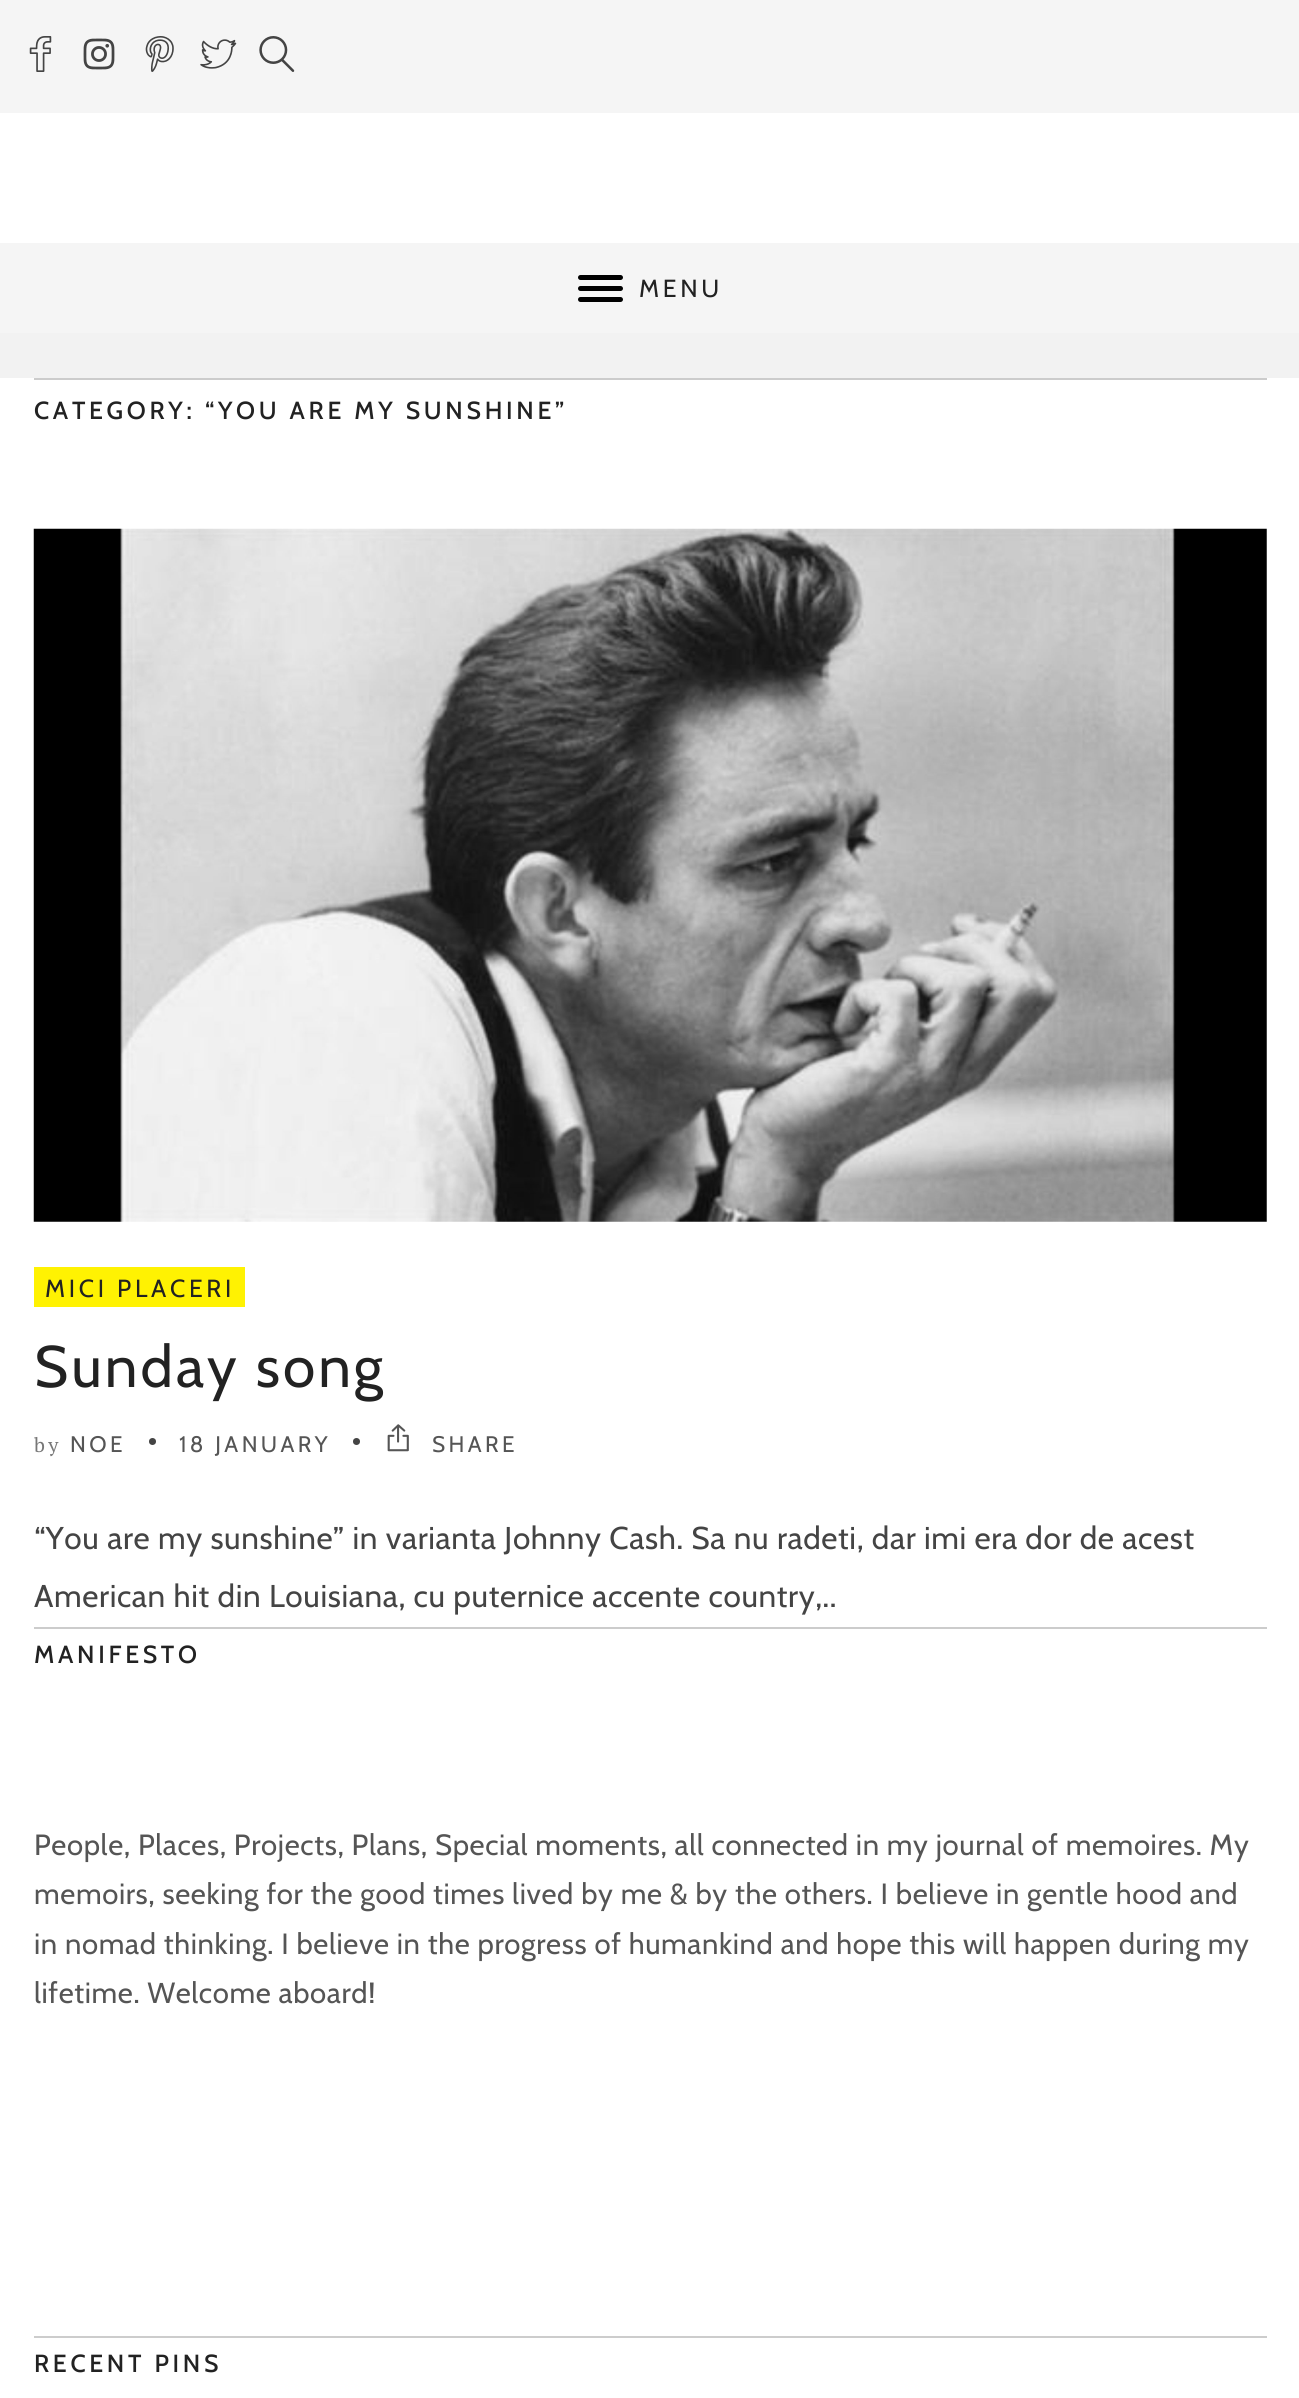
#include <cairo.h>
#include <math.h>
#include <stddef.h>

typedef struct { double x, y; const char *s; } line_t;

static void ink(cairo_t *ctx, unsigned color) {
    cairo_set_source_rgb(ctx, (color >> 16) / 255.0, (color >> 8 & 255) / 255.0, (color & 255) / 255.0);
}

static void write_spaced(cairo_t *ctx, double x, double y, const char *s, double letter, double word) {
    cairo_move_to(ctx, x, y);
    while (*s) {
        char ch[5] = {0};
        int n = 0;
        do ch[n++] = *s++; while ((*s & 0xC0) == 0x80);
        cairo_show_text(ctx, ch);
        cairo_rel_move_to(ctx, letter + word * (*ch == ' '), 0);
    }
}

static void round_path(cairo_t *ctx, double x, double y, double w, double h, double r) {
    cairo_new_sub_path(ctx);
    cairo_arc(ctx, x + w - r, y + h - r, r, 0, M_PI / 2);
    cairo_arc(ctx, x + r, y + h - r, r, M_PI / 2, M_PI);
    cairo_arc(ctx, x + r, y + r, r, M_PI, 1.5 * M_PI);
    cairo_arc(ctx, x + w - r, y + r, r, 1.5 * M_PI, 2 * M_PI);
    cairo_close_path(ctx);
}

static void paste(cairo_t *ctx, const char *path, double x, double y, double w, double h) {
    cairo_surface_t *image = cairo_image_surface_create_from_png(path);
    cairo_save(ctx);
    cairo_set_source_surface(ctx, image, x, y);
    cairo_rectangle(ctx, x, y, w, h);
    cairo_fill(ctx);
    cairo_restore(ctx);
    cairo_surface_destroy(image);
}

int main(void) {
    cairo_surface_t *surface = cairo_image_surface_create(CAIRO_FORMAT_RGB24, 1299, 2398);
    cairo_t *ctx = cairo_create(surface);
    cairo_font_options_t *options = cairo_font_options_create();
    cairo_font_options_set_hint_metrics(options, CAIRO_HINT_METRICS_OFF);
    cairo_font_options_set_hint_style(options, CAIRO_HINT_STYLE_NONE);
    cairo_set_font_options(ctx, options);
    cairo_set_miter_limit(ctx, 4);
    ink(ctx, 0xF2F2F2);
    cairo_paint(ctx);
    ink(ctx, 0xF5F5F5);
    cairo_rectangle(ctx, 0, 0, 1299, 113);
    cairo_fill(ctx);
    paste(ctx, "media/1.png", 29, 36, 23, 36);
    paste(ctx, "media/2.png", 83, 38, 32, 32);
    paste(ctx, "media/3.png", 145, 36, 29, 36);
    paste(ctx, "media/4.png", 200, 39, 37, 30);
    paste(ctx, "media/5.png", 259, 36, 36, 36);
    ink(ctx, 0xFFFFFF);
    cairo_rectangle(ctx, 0, 113, 1299, 130);
    cairo_fill(ctx);
    ink(ctx, 0xF5F5F5);
    cairo_rectangle(ctx, 0, 243, 1299, 90);
    cairo_fill(ctx);
    ink(ctx, 0x000000);
    round_path(ctx, 578, 275, 45, 5, 2.5);
    cairo_fill(ctx);
    round_path(ctx, 578, 286, 45, 5, 2.5);
    cairo_fill(ctx);
    round_path(ctx, 578, 297, 45, 5, 2.5);
    cairo_fill(ctx);
    cairo_select_font_face(ctx, "Cabin", CAIRO_FONT_SLANT_NORMAL, CAIRO_FONT_WEIGHT_NORMAL);
    cairo_set_font_size(ctx, 24.75);
    ink(ctx, 0x222222);
    write_spaced(ctx, 639, 297, "MENU", 3.7, 0);
    ink(ctx, 0xFFFFFF);
    cairo_rectangle(ctx, 0, 378, 1299, 2020);
    cairo_fill(ctx);
    ink(ctx, 0xCCCCCC);
    cairo_rectangle(ctx, 34, 378, 1233, 2);
    cairo_fill(ctx);
    cairo_select_font_face(ctx, "Cabin Medium", CAIRO_FONT_SLANT_NORMAL, CAIRO_FONT_WEIGHT_NORMAL);
    ink(ctx, 0x222222);
    write_spaced(ctx, 34, 419, "CATEGORY: “YOU ARE MY SUNSHINE”", 3.7, 0);
    paste(ctx, "media/6.png", 33, 528, 1234, 694);
    ink(ctx, 0xFFF202);
    cairo_rectangle(ctx, 34, 1267, 211, 40);
    cairo_fill(ctx);
    cairo_select_font_face(ctx, "Cabin", CAIRO_FONT_SLANT_NORMAL, CAIRO_FONT_WEIGHT_NORMAL);
    ink(ctx, 0x222222);
    write_spaced(ctx, 45, 1297, "MICI PLACERI", 3.7, 0);
    cairo_set_font_size(ctx, 58.5);
    write_spaced(ctx, 34, 1387, "Sunday song", 3, 0);
    cairo_select_font_face(ctx, "PT Serif", CAIRO_FONT_SLANT_NORMAL, CAIRO_FONT_WEIGHT_NORMAL);
    cairo_set_font_size(ctx, 20);
    ink(ctx, 0x777777);
    write_spaced(ctx, 34, 1452, "by", 3.4, 0);
    cairo_select_font_face(ctx, "Cabin", CAIRO_FONT_SLANT_NORMAL, CAIRO_FONT_WEIGHT_NORMAL);
    cairo_set_font_size(ctx, 22.5);
    ink(ctx, 0x555555);
    write_spaced(ctx, 70, 1452, "NOE", 3.4, 0);
    ink(ctx, 0x444444);
    cairo_new_path(ctx);
    cairo_arc(ctx, 152.5, 1441.5, 3.5, 0, 2 * M_PI);
    cairo_fill(ctx);
    ink(ctx, 0x555555);
    write_spaced(ctx, 179, 1452, "18 JANUARY", 3.4, 0);
    ink(ctx, 0x444444);
    cairo_new_path(ctx);
    cairo_arc(ctx, 356.5, 1441.5, 3.5, 0, 2 * M_PI);
    cairo_fill(ctx);
    paste(ctx, "media/7.png", 387, 1424, 22, 28);
    ink(ctx, 0x555555);
    write_spaced(ctx, 432, 1452, "SHARE", 3.4, 0);
    cairo_set_font_size(ctx, 31.5);
    ink(ctx, 0x444444);
    write_spaced(ctx, 34, 1549, "“You are my sunshine” in varianta Johnny Cash. Sa nu radeti, dar imi era dor de acest", 0.63, 0);
    write_spaced(ctx, 34, 1607, "American hit din Louisiana, cu puternice accente country,..", 0.63, 0);
    ink(ctx, 0xCCCCCC);
    cairo_rectangle(ctx, 34, 1627, 1233, 2);
    cairo_fill(ctx);
    cairo_select_font_face(ctx, "Cabin Medium", CAIRO_FONT_SLANT_NORMAL, CAIRO_FONT_WEIGHT_NORMAL);
    cairo_set_font_size(ctx, 24.75);
    ink(ctx, 0x222222);
    write_spaced(ctx, 34, 1663, "MANIFESTO", 3.7, 0);
    cairo_select_font_face(ctx, "Cabin", CAIRO_FONT_SLANT_NORMAL, CAIRO_FONT_WEIGHT_NORMAL);
    cairo_set_font_size(ctx, 29.25);
    ink(ctx, 0x555555);
    {
        static const line_t items[] = {
            {34, 1855, "People, Places, Projects, Plans, Special moments, all connected in my journal of memoires. My"},
            {34, 1904, "memoirs, seeking for the good times lived by me & by the others. I believe in gentle hood and"},
            {34, 1954, "in nomad thinking. I believe in the progress of humankind and hope this will happen during my"},
            {34, 2003, "lifetime. Welcome aboard!"},
        };
        for (size_t i = 0; i < sizeof items / sizeof *items; i++) {
            write_spaced(ctx, items[i].x, items[i].y, items[i].s, 0.63, 0);
        }
    }
    ink(ctx, 0xCCCCCC);
    cairo_rectangle(ctx, 34, 2336, 1233, 2);
    cairo_fill(ctx);
    cairo_select_font_face(ctx, "Cabin Medium", CAIRO_FONT_SLANT_NORMAL, CAIRO_FONT_WEIGHT_NORMAL);
    cairo_set_font_size(ctx, 24.75);
    ink(ctx, 0x222222);
    write_spaced(ctx, 34, 2372, "RECENT PINS", 3.7, 0);
    cairo_surface_write_to_png(surface, "image.png");
    cairo_font_options_destroy(options);
    cairo_destroy(ctx);
    cairo_surface_destroy(surface);
    return 0;
}
